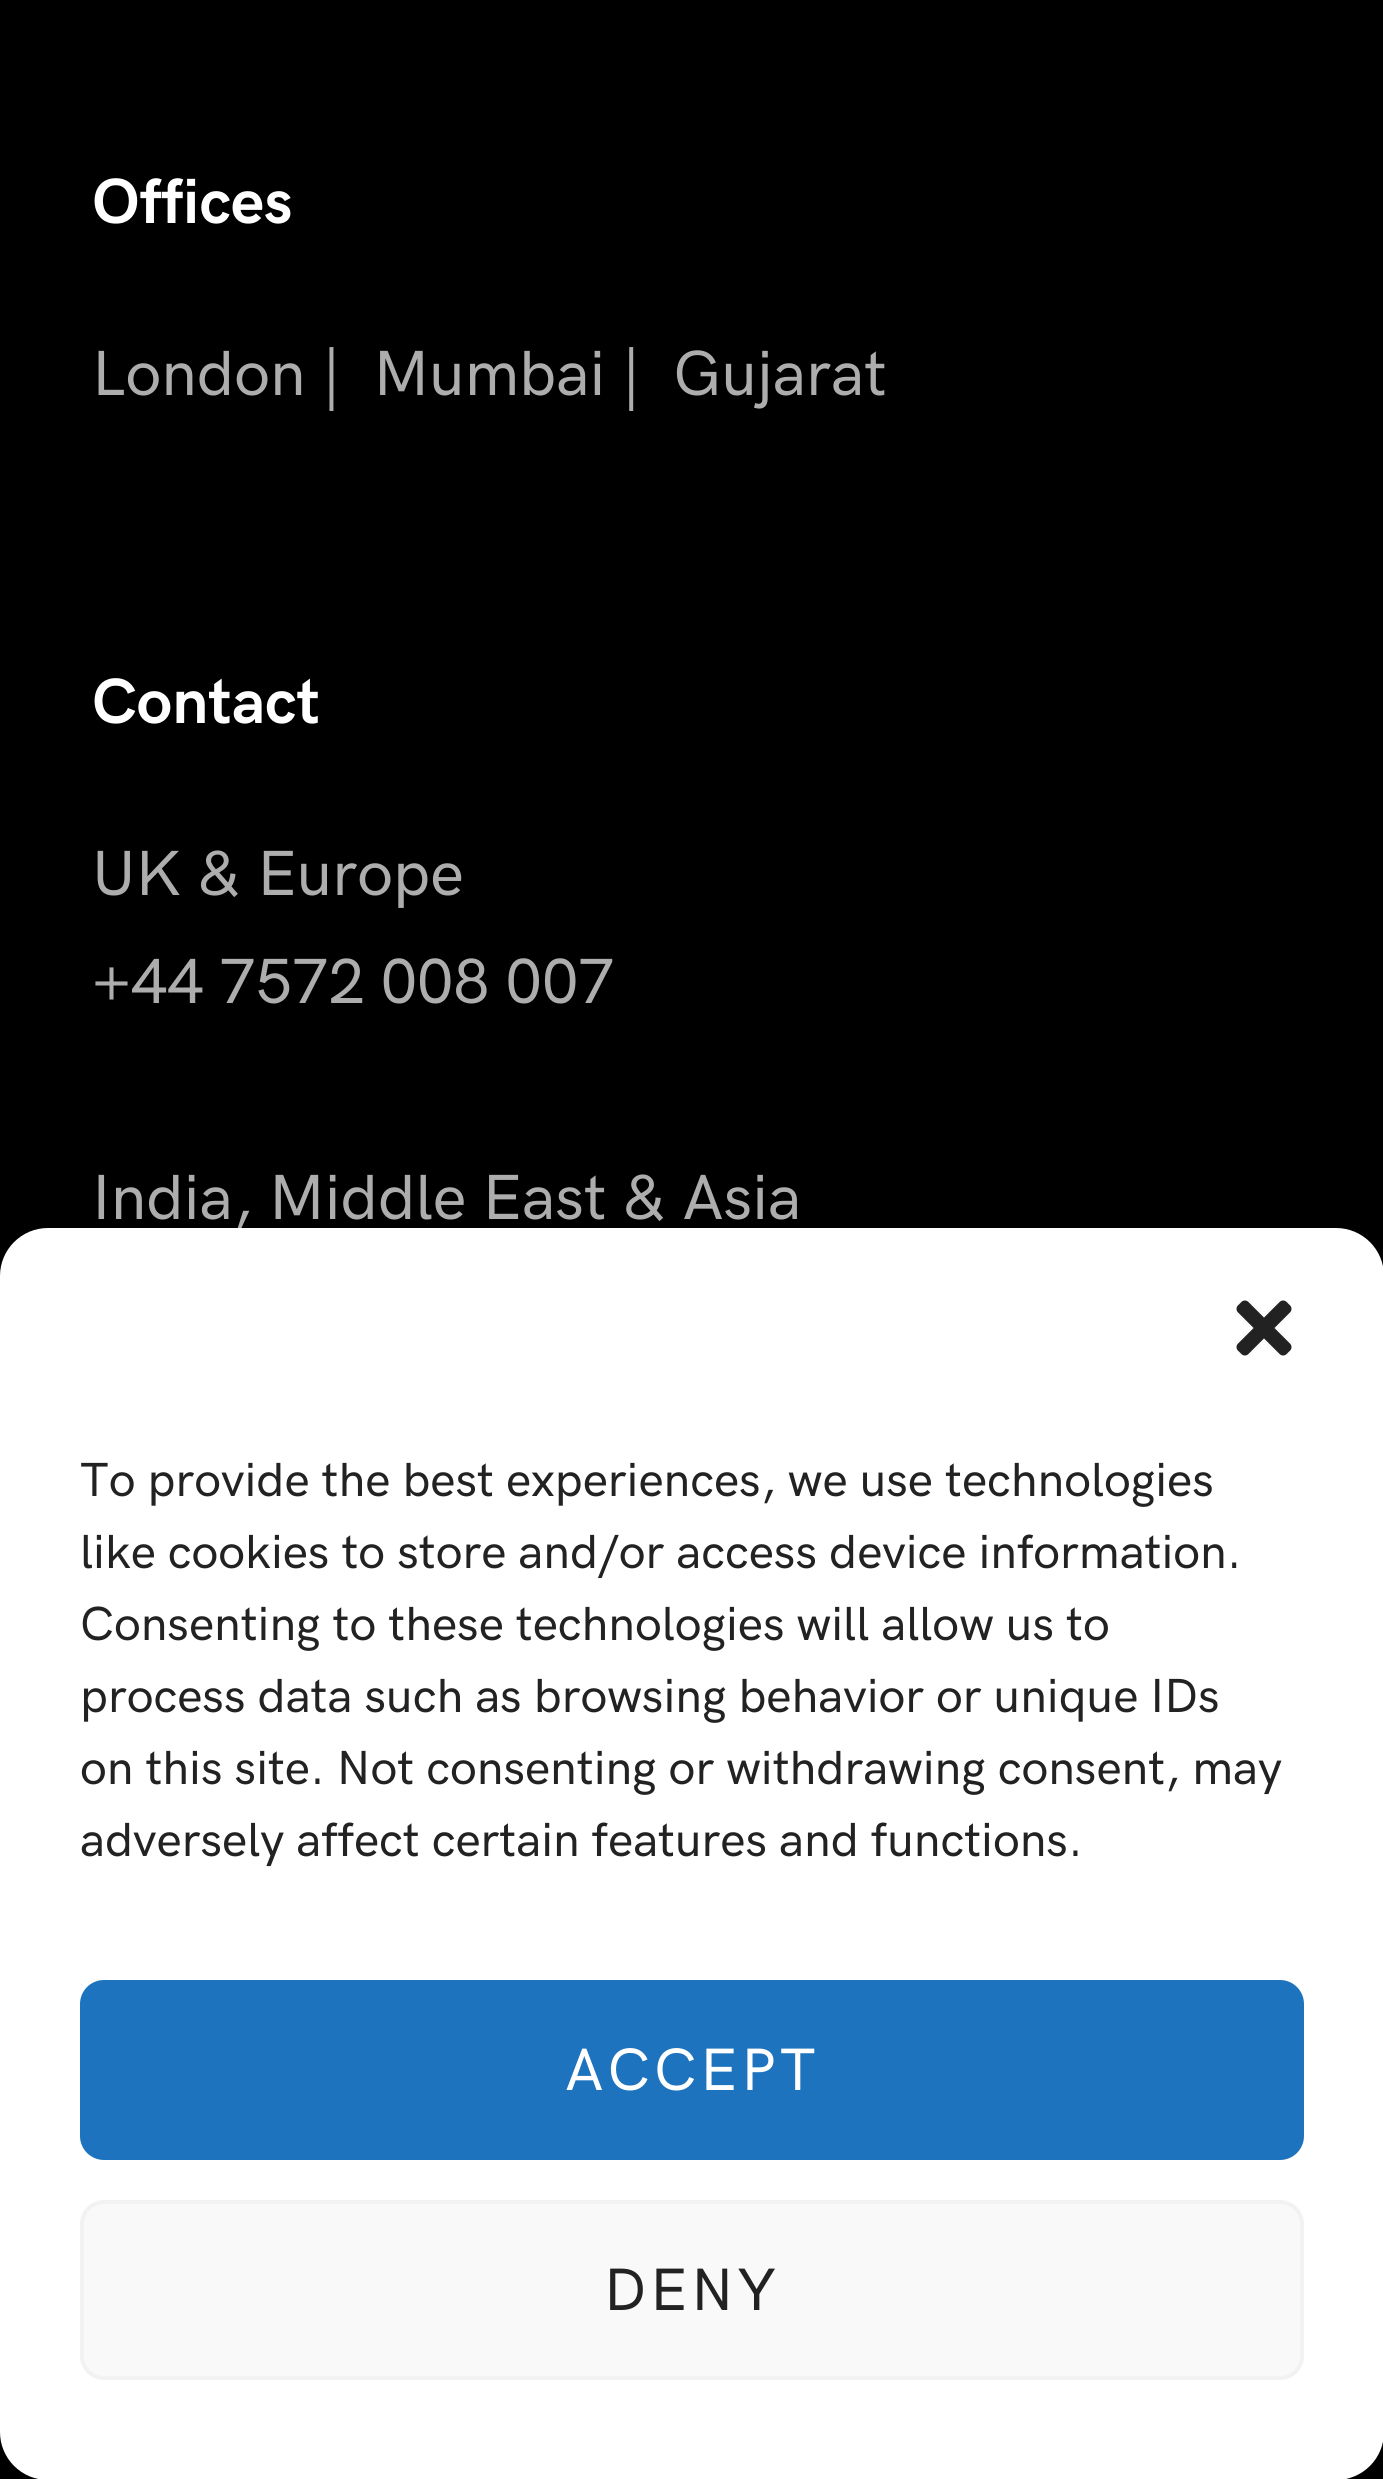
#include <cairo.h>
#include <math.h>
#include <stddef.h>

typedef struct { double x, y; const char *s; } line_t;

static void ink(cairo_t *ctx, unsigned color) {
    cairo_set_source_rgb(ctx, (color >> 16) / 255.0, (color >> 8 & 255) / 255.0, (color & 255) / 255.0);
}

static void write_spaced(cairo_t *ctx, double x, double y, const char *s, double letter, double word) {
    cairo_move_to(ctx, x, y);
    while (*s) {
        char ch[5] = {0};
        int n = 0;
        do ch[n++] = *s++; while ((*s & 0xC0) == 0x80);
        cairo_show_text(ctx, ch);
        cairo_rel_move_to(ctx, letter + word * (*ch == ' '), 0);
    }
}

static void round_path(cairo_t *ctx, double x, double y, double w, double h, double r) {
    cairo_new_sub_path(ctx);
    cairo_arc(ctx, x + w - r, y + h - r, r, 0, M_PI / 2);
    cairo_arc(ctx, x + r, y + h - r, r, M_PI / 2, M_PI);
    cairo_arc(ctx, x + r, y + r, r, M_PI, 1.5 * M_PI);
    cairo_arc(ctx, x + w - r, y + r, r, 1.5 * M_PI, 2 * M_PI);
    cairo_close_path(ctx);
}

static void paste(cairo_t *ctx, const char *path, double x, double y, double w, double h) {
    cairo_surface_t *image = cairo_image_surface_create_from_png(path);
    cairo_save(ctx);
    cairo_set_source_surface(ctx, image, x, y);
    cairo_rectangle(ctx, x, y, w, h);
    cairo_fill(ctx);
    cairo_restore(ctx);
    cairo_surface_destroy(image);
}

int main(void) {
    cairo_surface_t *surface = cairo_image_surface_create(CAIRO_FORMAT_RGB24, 1383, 2479);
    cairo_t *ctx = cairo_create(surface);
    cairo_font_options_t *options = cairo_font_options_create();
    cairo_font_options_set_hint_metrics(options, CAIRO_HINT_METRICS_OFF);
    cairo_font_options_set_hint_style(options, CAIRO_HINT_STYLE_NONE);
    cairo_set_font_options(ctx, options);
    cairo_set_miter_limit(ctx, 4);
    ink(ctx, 0x000000);
    cairo_paint(ctx);
    cairo_select_font_face(ctx, "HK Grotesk", CAIRO_FONT_SLANT_NORMAL, CAIRO_FONT_WEIGHT_BOLD);
    cairo_set_font_size(ctx, 64);
    ink(ctx, 0xFFFFFF);
    cairo_move_to(ctx, 92, 223);
    cairo_show_text(ctx, "Offices");
    cairo_select_font_face(ctx, "HK Grotesk Medium", CAIRO_FONT_SLANT_NORMAL, CAIRO_FONT_WEIGHT_NORMAL);
    ink(ctx, 0xADADAD);
    cairo_move_to(ctx, 92, 395);
    cairo_show_text(ctx, "London |  Mumbai |  Gujarat");
    cairo_select_font_face(ctx, "HK Grotesk", CAIRO_FONT_SLANT_NORMAL, CAIRO_FONT_WEIGHT_BOLD);
    ink(ctx, 0xFFFFFF);
    cairo_move_to(ctx, 92, 723);
    cairo_show_text(ctx, "Contact");
    cairo_select_font_face(ctx, "HK Grotesk Medium", CAIRO_FONT_SLANT_NORMAL, CAIRO_FONT_WEIGHT_NORMAL);
    ink(ctx, 0xADADAD);
    {
        static const line_t items[] = {
            {92, 895, "UK & Europe"},
            {92, 1003, "+44 7572 008 007"},
            {92, 1219, "India, Middle East & Asia"},
        };
        for (size_t i = 0; i < sizeof items / sizeof *items; i++) {
            cairo_move_to(ctx, items[i].x, items[i].y);
            cairo_show_text(ctx, items[i].s);
        }
    }
    ink(ctx, 0xFFFFFF);
    round_path(ctx, 0, 1228, 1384, 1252, 48);
    cairo_fill(ctx);
    paste(ctx, "media/1.png", 1236, 1300, 56, 56);
    cairo_set_font_size(ctx, 48);
    ink(ctx, 0x222222);
    {
        static const line_t items[] = {
            {80, 1496, "To provide the best experiences, we use technologies"},
            {80, 1568, "like cookies to store and/or access device information."},
            {80, 1640, "Consenting to these technologies will allow us to"},
            {80, 1712, "process data such as browsing behavior or unique IDs"},
            {80, 1784, "on this site. Not consenting or withdrawing consent, may"},
            {80, 1856, "adversely affect certain features and functions."},
        };
        for (size_t i = 0; i < sizeof items / sizeof *items; i++) {
            cairo_move_to(ctx, items[i].x, items[i].y);
            cairo_show_text(ctx, items[i].s);
        }
    }
    ink(ctx, 0x1E73BE);
    round_path(ctx, 82, 1982, 1220, 176, 22);
    cairo_fill_preserve(ctx);
    cairo_set_line_width(ctx, 4);
    cairo_stroke(ctx);
    cairo_set_font_size(ctx, 60);
    ink(ctx, 0xFFFFFF);
    write_spaced(ctx, 565, 2090, "ACCEPT", 4, 0);
    ink(ctx, 0xF9F9F9);
    round_path(ctx, 82, 2202, 1220, 176, 22);
    cairo_fill_preserve(ctx);
    ink(ctx, 0xF2F2F2);
    cairo_stroke(ctx);
    ink(ctx, 0x222222);
    write_spaced(ctx, 604, 2310, "DENY", 4, 0);
    cairo_surface_write_to_png(surface, "image.png");
    cairo_font_options_destroy(options);
    cairo_destroy(ctx);
    cairo_surface_destroy(surface);
    return 0;
}
